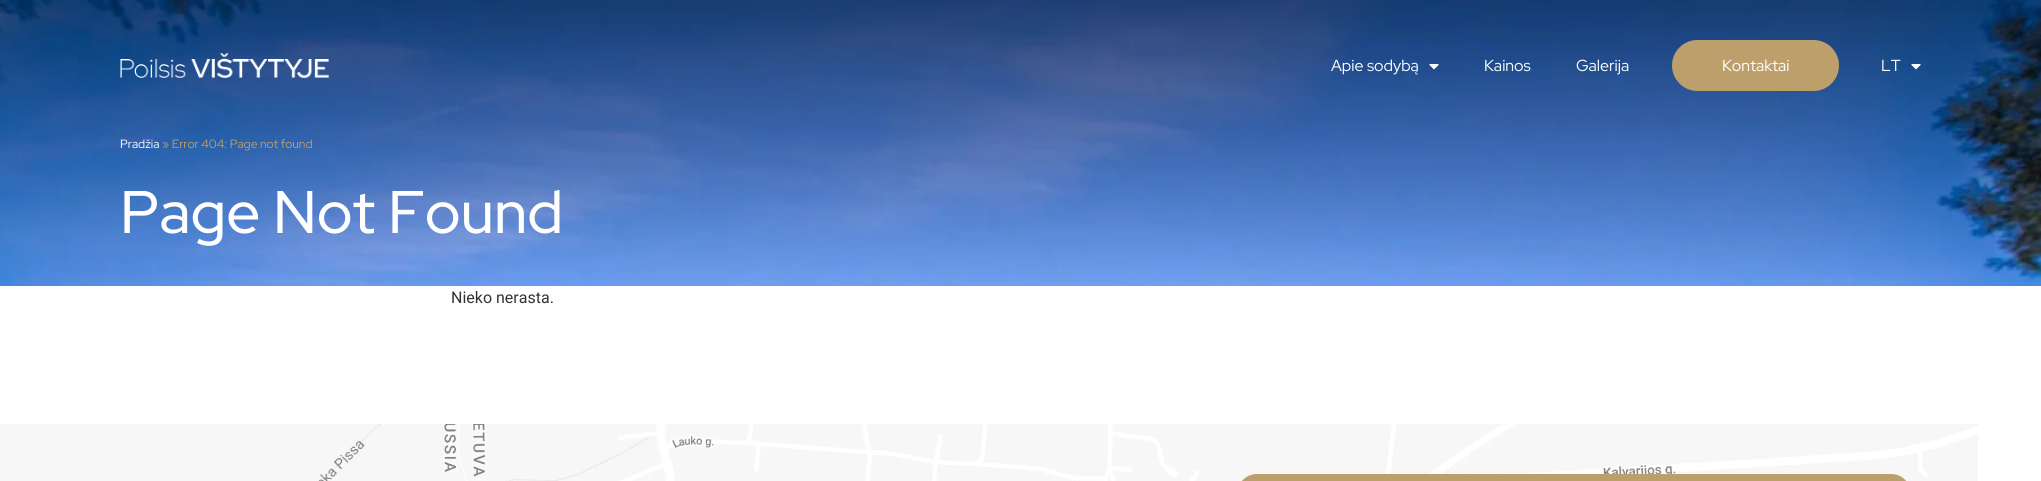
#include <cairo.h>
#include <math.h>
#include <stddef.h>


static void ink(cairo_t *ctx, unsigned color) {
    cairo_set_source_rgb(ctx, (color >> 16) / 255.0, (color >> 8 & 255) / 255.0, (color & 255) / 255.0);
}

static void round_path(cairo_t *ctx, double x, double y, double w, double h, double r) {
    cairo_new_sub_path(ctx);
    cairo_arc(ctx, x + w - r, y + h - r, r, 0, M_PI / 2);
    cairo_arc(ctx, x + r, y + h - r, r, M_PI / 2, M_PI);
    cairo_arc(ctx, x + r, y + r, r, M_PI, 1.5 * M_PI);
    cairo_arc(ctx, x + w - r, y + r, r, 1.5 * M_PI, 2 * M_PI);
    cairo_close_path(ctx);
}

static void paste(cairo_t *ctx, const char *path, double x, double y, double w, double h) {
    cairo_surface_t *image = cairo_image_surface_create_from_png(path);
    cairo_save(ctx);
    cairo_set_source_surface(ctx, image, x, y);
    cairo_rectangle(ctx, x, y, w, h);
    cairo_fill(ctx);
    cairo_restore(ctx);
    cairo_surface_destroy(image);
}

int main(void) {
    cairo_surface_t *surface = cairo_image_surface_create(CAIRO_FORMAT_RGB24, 2041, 481);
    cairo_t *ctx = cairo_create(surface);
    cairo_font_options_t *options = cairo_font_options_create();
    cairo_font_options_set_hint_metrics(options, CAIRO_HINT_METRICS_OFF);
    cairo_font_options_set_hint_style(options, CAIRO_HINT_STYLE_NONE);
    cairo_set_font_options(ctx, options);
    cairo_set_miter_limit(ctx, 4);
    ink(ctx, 0xFFFFFF);
    cairo_paint(ctx);
    paste(ctx, "media/1.png", 0, 0, 2041, 286);
    paste(ctx, "media/2.png", 120, 53, 209, 25);
    cairo_select_font_face(ctx, "Red Hat Display", CAIRO_FONT_SLANT_NORMAL, CAIRO_FONT_WEIGHT_NORMAL);
    cairo_set_font_size(ctx, 16);
    ink(ctx, 0xFFFFFF);
    cairo_move_to(ctx, 1331, 71);
    cairo_show_text(ctx, "Apie sodybą");
    paste(ctx, "media/3.png", 1429, 64, 10, 6);
    cairo_move_to(ctx, 1484, 71);
    cairo_show_text(ctx, "Kainos");
    cairo_move_to(ctx, 1576, 71);
    cairo_show_text(ctx, "Galerija");
    ink(ctx, 0xBD9F6C);
    round_path(ctx, 1672, 40, 167, 51, 25.5);
    cairo_fill(ctx);
    ink(ctx, 0xFFFFFF);
    cairo_move_to(ctx, 1722, 71);
    cairo_show_text(ctx, "Kontaktai");
    cairo_move_to(ctx, 1881, 71);
    cairo_show_text(ctx, "LT");
    paste(ctx, "media/4.png", 1911, 64, 10, 6);
    cairo_set_font_size(ctx, 12);
    cairo_move_to(ctx, 120, 148);
    cairo_show_text(ctx, "Pradžia");
    ink(ctx, 0xBD9F6C);
    cairo_move_to(ctx, 162, 148);
    cairo_show_text(ctx, "» Error 404: Page not found");
    cairo_select_font_face(ctx, "Red Hat Display Medium", CAIRO_FONT_SLANT_NORMAL, CAIRO_FONT_WEIGHT_NORMAL);
    cairo_set_font_size(ctx, 60);
    ink(ctx, 0xFFFFFF);
    cairo_move_to(ctx, 120, 233);
    cairo_show_text(ctx, "Page Not Found");
    cairo_select_font_face(ctx, "Roboto", CAIRO_FONT_SLANT_NORMAL, CAIRO_FONT_WEIGHT_NORMAL);
    cairo_set_font_size(ctx, 16);
    ink(ctx, 0x333333);
    cairo_move_to(ctx, 451, 303);
    cairo_show_text(ctx, "Nieko nerasta.");
    paste(ctx, "media/5.png", 0, 424, 1978, 57);
    ink(ctx, 0xBD9F6C);
    round_path(ctx, 1237, 474, 674, 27, 20);
    cairo_fill(ctx);
    cairo_surface_write_to_png(surface, "image.png");
    cairo_font_options_destroy(options);
    cairo_destroy(ctx);
    cairo_surface_destroy(surface);
    return 0;
}
